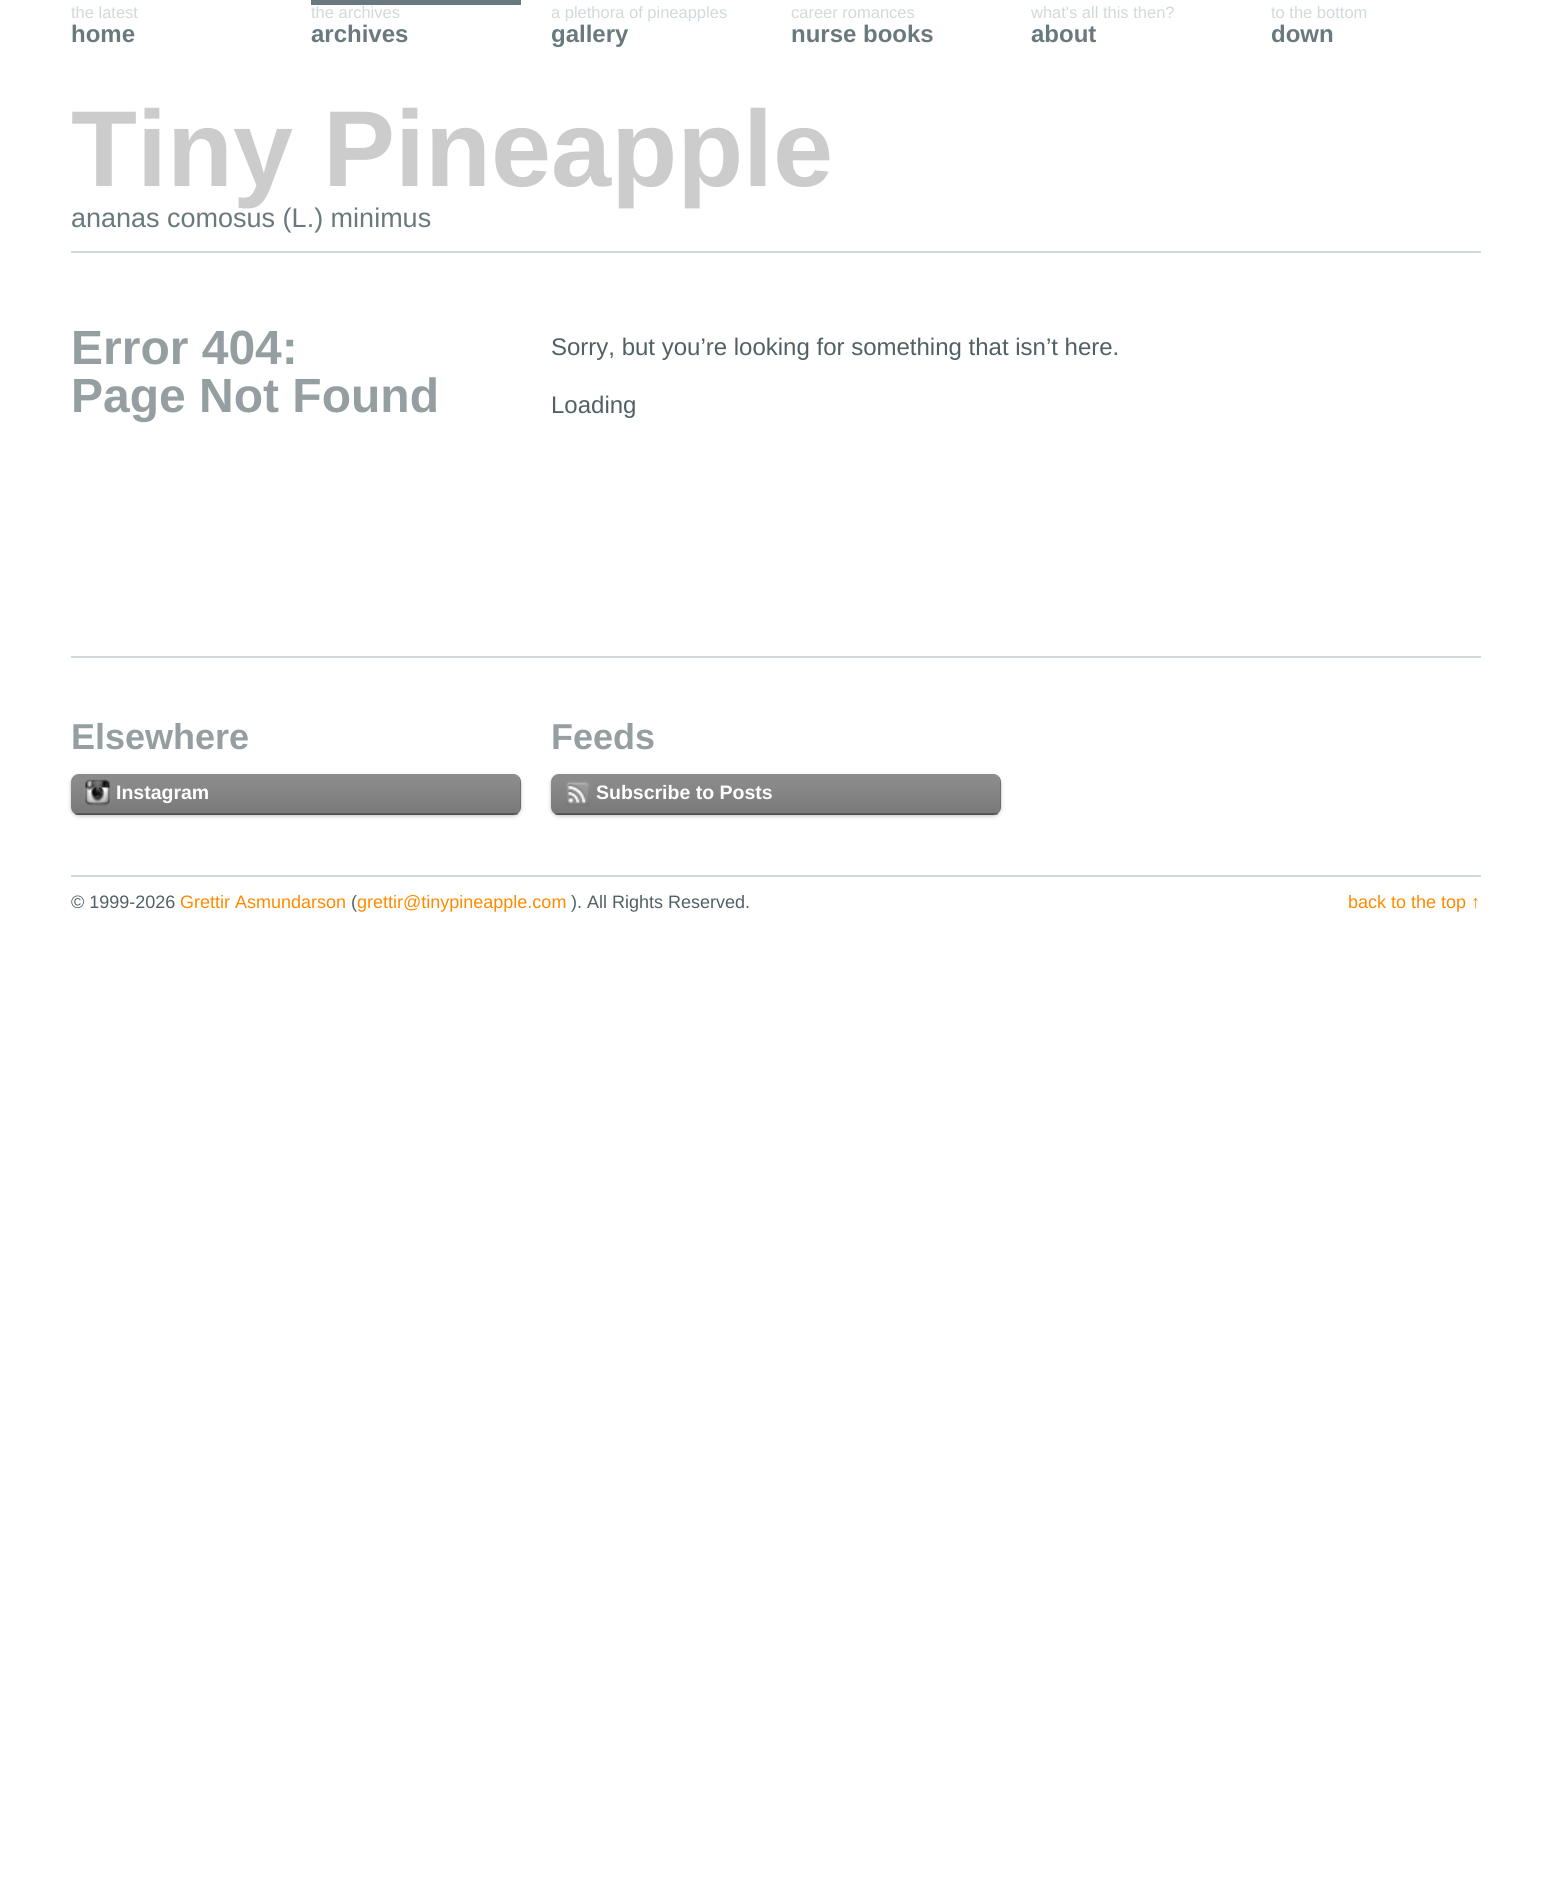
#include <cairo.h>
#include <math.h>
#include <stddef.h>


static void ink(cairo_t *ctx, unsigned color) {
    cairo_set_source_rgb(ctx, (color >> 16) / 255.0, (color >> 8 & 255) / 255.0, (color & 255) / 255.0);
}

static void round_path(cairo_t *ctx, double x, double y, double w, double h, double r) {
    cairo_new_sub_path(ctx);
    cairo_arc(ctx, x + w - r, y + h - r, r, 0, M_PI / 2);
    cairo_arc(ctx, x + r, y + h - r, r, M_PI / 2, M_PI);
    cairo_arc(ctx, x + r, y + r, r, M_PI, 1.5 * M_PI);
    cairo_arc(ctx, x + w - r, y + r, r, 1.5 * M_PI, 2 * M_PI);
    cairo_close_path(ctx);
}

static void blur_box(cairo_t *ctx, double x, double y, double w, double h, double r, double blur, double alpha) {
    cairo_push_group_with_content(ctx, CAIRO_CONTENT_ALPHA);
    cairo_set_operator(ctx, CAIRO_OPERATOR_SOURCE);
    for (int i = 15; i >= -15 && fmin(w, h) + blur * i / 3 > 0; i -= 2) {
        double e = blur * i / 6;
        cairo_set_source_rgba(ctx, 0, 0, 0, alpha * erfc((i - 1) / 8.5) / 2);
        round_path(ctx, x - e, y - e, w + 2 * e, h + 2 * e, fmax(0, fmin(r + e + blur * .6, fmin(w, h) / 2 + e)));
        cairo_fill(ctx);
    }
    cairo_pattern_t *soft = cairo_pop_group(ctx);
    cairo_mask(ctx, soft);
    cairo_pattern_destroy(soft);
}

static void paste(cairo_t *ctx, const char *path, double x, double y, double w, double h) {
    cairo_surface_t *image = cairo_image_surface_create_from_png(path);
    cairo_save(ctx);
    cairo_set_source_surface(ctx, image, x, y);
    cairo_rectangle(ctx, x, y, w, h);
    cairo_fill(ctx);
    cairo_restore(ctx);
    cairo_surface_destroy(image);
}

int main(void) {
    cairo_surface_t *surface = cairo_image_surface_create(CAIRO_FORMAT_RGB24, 1550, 1891);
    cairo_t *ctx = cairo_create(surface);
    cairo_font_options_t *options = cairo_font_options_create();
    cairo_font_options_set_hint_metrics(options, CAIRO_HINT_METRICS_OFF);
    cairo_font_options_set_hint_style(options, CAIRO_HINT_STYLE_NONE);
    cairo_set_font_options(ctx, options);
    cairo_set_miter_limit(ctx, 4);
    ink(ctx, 0xFFFFFF);
    cairo_paint(ctx);
    ink(ctx, 0xD1D9DC);
    cairo_rectangle(ctx, 71, 251, 1410, 2);
    cairo_fill(ctx);
    cairo_select_font_face(ctx, "Liberation Sans", CAIRO_FONT_SLANT_NORMAL, CAIRO_FONT_WEIGHT_NORMAL);
    cairo_set_font_size(ctx, 16.5);
    cairo_move_to(ctx, 71, 18);
    cairo_show_text(ctx, "the latest");
    cairo_select_font_face(ctx, "Liberation Sans", CAIRO_FONT_SLANT_NORMAL, CAIRO_FONT_WEIGHT_BOLD);
    cairo_set_font_size(ctx, 24);
    ink(ctx, 0x6A797D);
    cairo_move_to(ctx, 71, 42);
    cairo_show_text(ctx, "home");
    cairo_rectangle(ctx, 311, 0, 210, 5);
    cairo_fill(ctx);
    cairo_select_font_face(ctx, "Liberation Sans", CAIRO_FONT_SLANT_NORMAL, CAIRO_FONT_WEIGHT_NORMAL);
    cairo_set_font_size(ctx, 16.5);
    ink(ctx, 0xD1D9DC);
    cairo_move_to(ctx, 311, 18);
    cairo_show_text(ctx, "the archives");
    cairo_select_font_face(ctx, "Liberation Sans", CAIRO_FONT_SLANT_NORMAL, CAIRO_FONT_WEIGHT_BOLD);
    cairo_set_font_size(ctx, 24);
    ink(ctx, 0x6A797D);
    cairo_move_to(ctx, 311, 42);
    cairo_show_text(ctx, "archives");
    cairo_select_font_face(ctx, "Liberation Sans", CAIRO_FONT_SLANT_NORMAL, CAIRO_FONT_WEIGHT_NORMAL);
    cairo_set_font_size(ctx, 16.5);
    ink(ctx, 0xD1D9DC);
    cairo_move_to(ctx, 551, 18);
    cairo_show_text(ctx, "a plethora of pineapples");
    cairo_select_font_face(ctx, "Liberation Sans", CAIRO_FONT_SLANT_NORMAL, CAIRO_FONT_WEIGHT_BOLD);
    cairo_set_font_size(ctx, 24);
    ink(ctx, 0x6A797D);
    cairo_move_to(ctx, 551, 42);
    cairo_show_text(ctx, "gallery");
    cairo_select_font_face(ctx, "Liberation Sans", CAIRO_FONT_SLANT_NORMAL, CAIRO_FONT_WEIGHT_NORMAL);
    cairo_set_font_size(ctx, 16.5);
    ink(ctx, 0xD1D9DC);
    cairo_move_to(ctx, 791, 18);
    cairo_show_text(ctx, "career romances");
    cairo_select_font_face(ctx, "Liberation Sans", CAIRO_FONT_SLANT_NORMAL, CAIRO_FONT_WEIGHT_BOLD);
    cairo_set_font_size(ctx, 24);
    ink(ctx, 0x6A797D);
    cairo_move_to(ctx, 791, 42);
    cairo_show_text(ctx, "nurse books");
    cairo_select_font_face(ctx, "Liberation Sans", CAIRO_FONT_SLANT_NORMAL, CAIRO_FONT_WEIGHT_NORMAL);
    cairo_set_font_size(ctx, 16.5);
    ink(ctx, 0xD1D9DC);
    cairo_move_to(ctx, 1031, 18);
    cairo_show_text(ctx, "what's all this then?");
    cairo_select_font_face(ctx, "Liberation Sans", CAIRO_FONT_SLANT_NORMAL, CAIRO_FONT_WEIGHT_BOLD);
    cairo_set_font_size(ctx, 24);
    ink(ctx, 0x6A797D);
    cairo_move_to(ctx, 1031, 42);
    cairo_show_text(ctx, "about");
    cairo_select_font_face(ctx, "Liberation Sans", CAIRO_FONT_SLANT_NORMAL, CAIRO_FONT_WEIGHT_NORMAL);
    cairo_set_font_size(ctx, 16.5);
    ink(ctx, 0xD1D9DC);
    cairo_move_to(ctx, 1271, 18);
    cairo_show_text(ctx, "to the bottom");
    cairo_select_font_face(ctx, "Liberation Sans", CAIRO_FONT_SLANT_NORMAL, CAIRO_FONT_WEIGHT_BOLD);
    cairo_set_font_size(ctx, 24);
    ink(ctx, 0x6A797D);
    cairo_move_to(ctx, 1271, 42);
    cairo_show_text(ctx, "down");
    cairo_set_font_size(ctx, 108);
    ink(ctx, 0xCCCCCC);
    cairo_move_to(ctx, 71, 186);
    cairo_show_text(ctx, "Tiny Pineapple");
    cairo_select_font_face(ctx, "Liberation Sans", CAIRO_FONT_SLANT_NORMAL, CAIRO_FONT_WEIGHT_NORMAL);
    cairo_set_font_size(ctx, 27);
    ink(ctx, 0x6A797D);
    cairo_move_to(ctx, 71, 227);
    cairo_show_text(ctx, "ananas comosus (L.) minimus");
    ink(ctx, 0xD1D9DC);
    cairo_rectangle(ctx, 71, 656, 1410, 2);
    cairo_fill(ctx);
    cairo_select_font_face(ctx, "Liberation Sans", CAIRO_FONT_SLANT_NORMAL, CAIRO_FONT_WEIGHT_BOLD);
    cairo_set_font_size(ctx, 48);
    ink(ctx, 0x959EA1);
    cairo_move_to(ctx, 71, 364);
    cairo_show_text(ctx, "Error 404:");
    cairo_move_to(ctx, 71, 412);
    cairo_show_text(ctx, "Page Not Found");
    cairo_select_font_face(ctx, "Liberation Sans", CAIRO_FONT_SLANT_NORMAL, CAIRO_FONT_WEIGHT_NORMAL);
    cairo_set_font_size(ctx, 24);
    ink(ctx, 0x516064);
    cairo_move_to(ctx, 551, 355);
    cairo_show_text(ctx, "Sorry, but you’re looking for something that isn’t here.");
    cairo_move_to(ctx, 551, 413);
    cairo_show_text(ctx, "Loading");
    cairo_select_font_face(ctx, "Liberation Sans", CAIRO_FONT_SLANT_NORMAL, CAIRO_FONT_WEIGHT_BOLD);
    cairo_set_font_size(ctx, 36);
    ink(ctx, 0x959EA1);
    cairo_move_to(ctx, 71, 749);
    cairo_show_text(ctx, "Elsewhere");
    ink(ctx, 0x000000);
    blur_box(ctx, 71, 776, 450, 40, 8, 2, 0.25);
    ink(ctx, 0x666666);
    round_path(ctx, 71, 774, 450, 41, 8);
    cairo_fill(ctx);
    paste(ctx, "media/1.png", 71, 774, 450, 41);
    cairo_set_source_rgba(ctx, 0, 0, 0, 0.25);
    cairo_rectangle(ctx, 75, 813, 443, 2);
    cairo_fill(ctx);
    paste(ctx, "media/2.png", 85, 779, 25, 27);
    cairo_set_font_size(ctx, 19.5);
    ink(ctx, 0xFFFFFF);
    cairo_move_to(ctx, 116, 799);
    cairo_show_text(ctx, "Instagram");
    cairo_set_font_size(ctx, 36);
    ink(ctx, 0x959EA1);
    cairo_move_to(ctx, 551, 749);
    cairo_show_text(ctx, "Feeds");
    ink(ctx, 0x000000);
    blur_box(ctx, 551, 776, 450, 40, 8, 2, 0.25);
    ink(ctx, 0x666666);
    round_path(ctx, 551, 774, 450, 41, 8);
    cairo_fill(ctx);
    paste(ctx, "media/1.png", 551, 774, 450, 41);
    cairo_set_source_rgba(ctx, 0, 0, 0, 0.25);
    cairo_rectangle(ctx, 555, 813, 443, 2);
    cairo_fill(ctx);
    paste(ctx, "media/3.png", 565, 781, 25, 25);
    cairo_set_font_size(ctx, 19.5);
    ink(ctx, 0xFFFFFF);
    cairo_move_to(ctx, 596, 799);
    cairo_show_text(ctx, "Subscribe to Posts");
    ink(ctx, 0xD1D9DC);
    cairo_rectangle(ctx, 71, 875, 1410, 2);
    cairo_fill(ctx);
    cairo_select_font_face(ctx, "Liberation Sans", CAIRO_FONT_SLANT_NORMAL, CAIRO_FONT_WEIGHT_NORMAL);
    cairo_set_font_size(ctx, 18);
    ink(ctx, 0x516064);
    cairo_move_to(ctx, 71, 908);
    cairo_show_text(ctx, "© 1999-2026");
    ink(ctx, 0xFF8A00);
    cairo_move_to(ctx, 180, 908);
    cairo_show_text(ctx, "Grettir Asmundarson");
    ink(ctx, 0x516064);
    cairo_move_to(ctx, 351, 908);
    cairo_show_text(ctx, "(");
    ink(ctx, 0xFF8A00);
    cairo_move_to(ctx, 357, 908);
    cairo_show_text(ctx, "grettir@tinypineapple.com");
    ink(ctx, 0x516064);
    cairo_move_to(ctx, 571, 908);
    cairo_show_text(ctx, "). All Rights Reserved.");
    ink(ctx, 0xFF8A00);
    cairo_move_to(ctx, 1348, 908);
    cairo_show_text(ctx, "back to the top ↑");
    cairo_surface_write_to_png(surface, "image.png");
    cairo_font_options_destroy(options);
    cairo_destroy(ctx);
    cairo_surface_destroy(surface);
    return 0;
}
